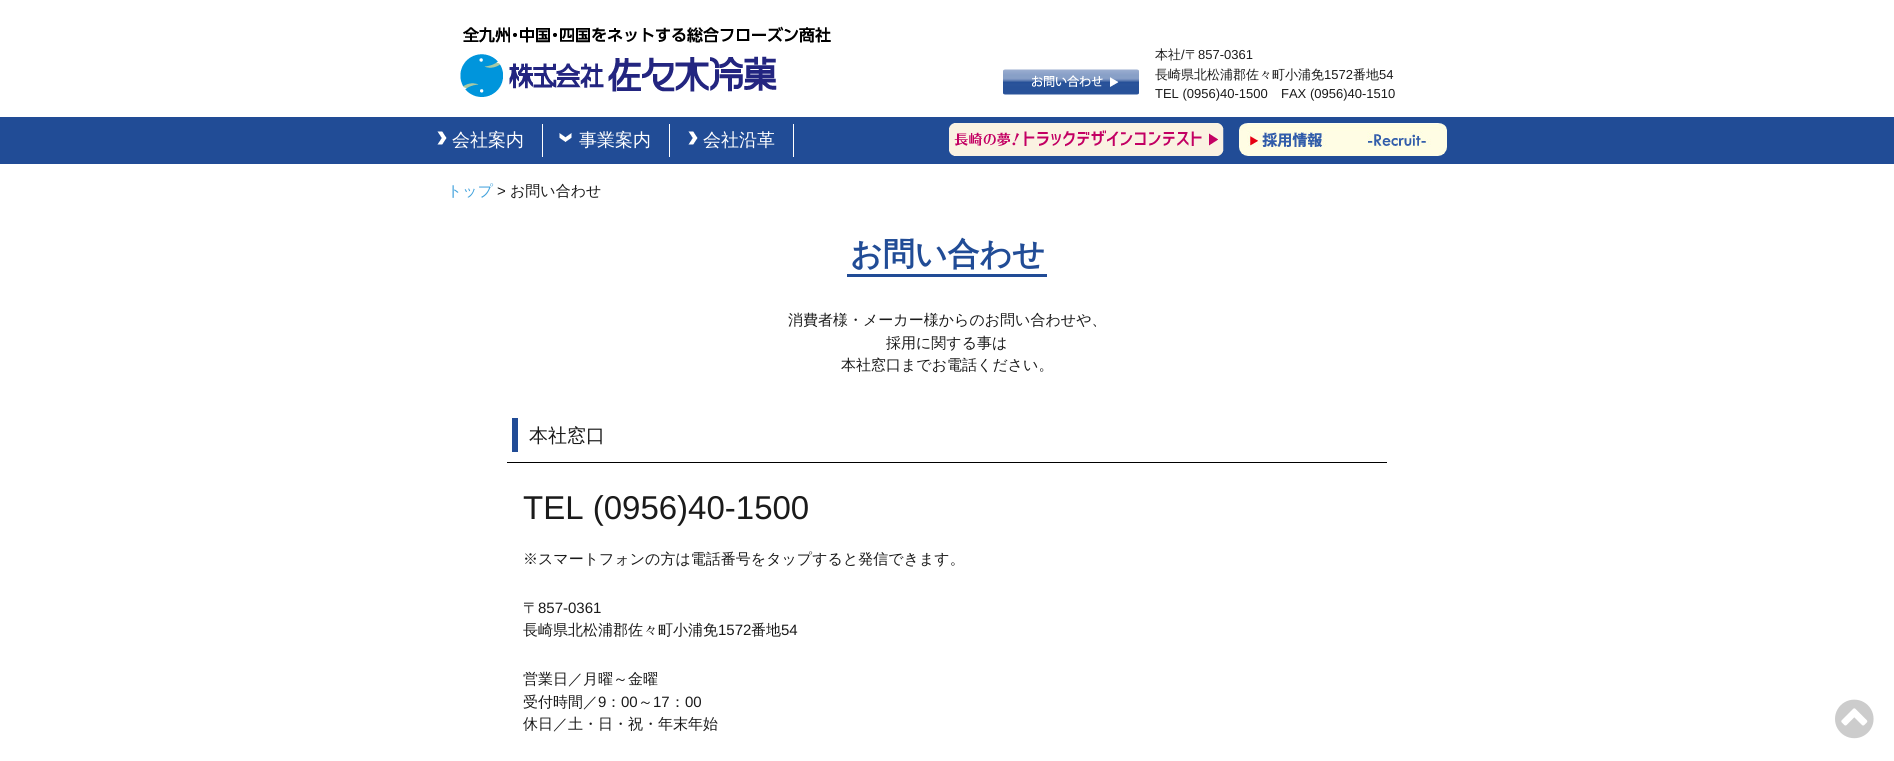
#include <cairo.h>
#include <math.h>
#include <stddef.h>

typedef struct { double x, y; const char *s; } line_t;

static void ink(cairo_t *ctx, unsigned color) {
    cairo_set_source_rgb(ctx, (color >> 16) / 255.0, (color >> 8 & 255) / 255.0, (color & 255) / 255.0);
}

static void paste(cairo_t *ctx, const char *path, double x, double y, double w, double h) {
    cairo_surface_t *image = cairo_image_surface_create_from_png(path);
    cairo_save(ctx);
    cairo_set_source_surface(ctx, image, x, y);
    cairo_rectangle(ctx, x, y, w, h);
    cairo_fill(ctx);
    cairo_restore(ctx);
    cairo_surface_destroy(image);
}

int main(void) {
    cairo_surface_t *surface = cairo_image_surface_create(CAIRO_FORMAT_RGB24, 1894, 761);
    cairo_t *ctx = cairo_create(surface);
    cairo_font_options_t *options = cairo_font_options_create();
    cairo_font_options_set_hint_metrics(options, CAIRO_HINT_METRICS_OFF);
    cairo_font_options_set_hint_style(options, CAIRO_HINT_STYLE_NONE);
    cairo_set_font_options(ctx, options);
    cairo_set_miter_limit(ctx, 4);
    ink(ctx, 0xFFFFFF);
    cairo_paint(ctx);
    paste(ctx, "media/1.png", 463, 26, 368, 17);
    paste(ctx, "media/2.png", 460, 54, 317, 43);
    paste(ctx, "media/3.png", 1003, 69, 136, 26);
    cairo_select_font_face(ctx, "WenQuanYi Zen Hei Medium", CAIRO_FONT_SLANT_NORMAL, CAIRO_FONT_WEIGHT_NORMAL);
    cairo_set_font_size(ctx, 13);
    ink(ctx, 0x1A1A1A);
    cairo_move_to(ctx, 1155, 59);
    cairo_show_text(ctx, "本社 〒");
    cairo_select_font_face(ctx, "Liberation Sans", CAIRO_FONT_SLANT_NORMAL, CAIRO_FONT_WEIGHT_NORMAL);
    cairo_move_to(ctx, 1181, 59);
    cairo_show_text(ctx, "/");
    cairo_move_to(ctx, 1198, 59);
    cairo_show_text(ctx, "857-0361");
    cairo_select_font_face(ctx, "WenQuanYi Zen Hei Medium", CAIRO_FONT_SLANT_NORMAL, CAIRO_FONT_WEIGHT_NORMAL);
    cairo_move_to(ctx, 1155, 79);
    cairo_show_text(ctx, "長崎県北松浦郡佐々町小浦免");
    cairo_select_font_face(ctx, "Liberation Sans", CAIRO_FONT_SLANT_NORMAL, CAIRO_FONT_WEIGHT_NORMAL);
    cairo_move_to(ctx, 1324, 79);
    cairo_show_text(ctx, "1572");
    cairo_select_font_face(ctx, "WenQuanYi Zen Hei Medium", CAIRO_FONT_SLANT_NORMAL, CAIRO_FONT_WEIGHT_NORMAL);
    cairo_move_to(ctx, 1353, 79);
    cairo_show_text(ctx, "番地");
    cairo_select_font_face(ctx, "Liberation Sans", CAIRO_FONT_SLANT_NORMAL, CAIRO_FONT_WEIGHT_NORMAL);
    {
        static const line_t items[] = {
            {1379, 79, "54"},
            {1155, 98, "TEL (0956)40-1500"},
            {1281, 98, "FAX (0956)40-1510"},
        };
        for (size_t i = 0; i < sizeof items / sizeof *items; i++) {
            cairo_move_to(ctx, items[i].x, items[i].y);
            cairo_show_text(ctx, items[i].s);
        }
    }
    ink(ctx, 0x214C96);
    cairo_rectangle(ctx, 0, 117, 1894, 47);
    cairo_fill(ctx);
    ink(ctx, 0xFFFFFF);
    cairo_rectangle(ctx, 542, 124, 1, 33);
    cairo_fill(ctx);
    paste(ctx, "media/4.png", 437, 131, 10, 14);
    cairo_select_font_face(ctx, "WenQuanYi Zen Hei Medium", CAIRO_FONT_SLANT_NORMAL, CAIRO_FONT_WEIGHT_NORMAL);
    cairo_set_font_size(ctx, 18);
    cairo_move_to(ctx, 452, 146);
    cairo_show_text(ctx, "会社案内");
    cairo_rectangle(ctx, 669, 124, 1, 33);
    cairo_fill(ctx);
    paste(ctx, "media/5.png", 559, 133, 13, 9);
    cairo_move_to(ctx, 579, 146);
    cairo_show_text(ctx, "事業案内");
    cairo_rectangle(ctx, 793, 124, 1, 33);
    cairo_fill(ctx);
    paste(ctx, "media/4.png", 688, 131, 10, 14);
    cairo_move_to(ctx, 703, 146);
    cairo_show_text(ctx, "会社沿革");
    paste(ctx, "media/6.png", 949, 123, 275, 33);
    paste(ctx, "media/7.png", 1239, 123, 208, 33);
    cairo_set_font_size(ctx, 15);
    ink(ctx, 0x42A2DC);
    cairo_move_to(ctx, 447, 196);
    cairo_show_text(ctx, "トップ");
    cairo_select_font_face(ctx, "Liberation Sans", CAIRO_FONT_SLANT_NORMAL, CAIRO_FONT_WEIGHT_NORMAL);
    ink(ctx, 0x1A1A1A);
    cairo_move_to(ctx, 497, 196);
    cairo_show_text(ctx, ">");
    cairo_select_font_face(ctx, "WenQuanYi Zen Hei Medium", CAIRO_FONT_SLANT_NORMAL, CAIRO_FONT_WEIGHT_NORMAL);
    cairo_move_to(ctx, 510, 196);
    cairo_show_text(ctx, "お問い合わせ");
    cairo_select_font_face(ctx, "WenQuanYi Zen Hei", CAIRO_FONT_SLANT_NORMAL, CAIRO_FONT_WEIGHT_BOLD);
    cairo_set_font_size(ctx, 32);
    ink(ctx, 0x214C96);
    cairo_move_to(ctx, 850, 265);
    cairo_show_text(ctx, "お問い合わせ");
    cairo_rectangle(ctx, 847, 274, 200, 3);
    cairo_fill(ctx);
    cairo_select_font_face(ctx, "WenQuanYi Zen Hei Medium", CAIRO_FONT_SLANT_NORMAL, CAIRO_FONT_WEIGHT_NORMAL);
    cairo_set_font_size(ctx, 15);
    ink(ctx, 0x1A1A1A);
    {
        static const line_t items[] = {
            {788, 325, "消費者様・メーカー様からのお問い合わせや、"},
            {886, 348, "採用に関する事は"},
            {841, 370, "本社窓口までお電話ください。"},
        };
        for (size_t i = 0; i < sizeof items / sizeof *items; i++) {
            cairo_move_to(ctx, items[i].x, items[i].y);
            cairo_show_text(ctx, items[i].s);
        }
    }
    ink(ctx, 0x000000);
    cairo_rectangle(ctx, 507, 462, 880, 1);
    cairo_fill(ctx);
    ink(ctx, 0x214C96);
    cairo_rectangle(ctx, 512, 418, 6, 34);
    cairo_fill(ctx);
    cairo_set_font_size(ctx, 19);
    ink(ctx, 0x1A1A1A);
    cairo_move_to(ctx, 529, 442);
    cairo_show_text(ctx, "本社窓口");
    cairo_select_font_face(ctx, "Liberation Sans", CAIRO_FONT_SLANT_NORMAL, CAIRO_FONT_WEIGHT_NORMAL);
    cairo_set_font_size(ctx, 33);
    cairo_move_to(ctx, 523, 519);
    cairo_show_text(ctx, "TEL (0956)40-1500");
    cairo_select_font_face(ctx, "WenQuanYi Zen Hei Medium", CAIRO_FONT_SLANT_NORMAL, CAIRO_FONT_WEIGHT_NORMAL);
    cairo_set_font_size(ctx, 15);
    cairo_move_to(ctx, 523, 564);
    cairo_show_text(ctx, "※スマートフォンの方は電話番号をタップすると発信できます。");
    cairo_move_to(ctx, 523, 613);
    cairo_show_text(ctx, "〒");
    cairo_select_font_face(ctx, "Liberation Sans", CAIRO_FONT_SLANT_NORMAL, CAIRO_FONT_WEIGHT_NORMAL);
    cairo_move_to(ctx, 538, 613);
    cairo_show_text(ctx, "857-0361");
    cairo_select_font_face(ctx, "WenQuanYi Zen Hei Medium", CAIRO_FONT_SLANT_NORMAL, CAIRO_FONT_WEIGHT_NORMAL);
    cairo_move_to(ctx, 523, 635);
    cairo_show_text(ctx, "長崎県北松浦郡佐々町小浦免");
    cairo_select_font_face(ctx, "Liberation Sans", CAIRO_FONT_SLANT_NORMAL, CAIRO_FONT_WEIGHT_NORMAL);
    cairo_move_to(ctx, 718, 635);
    cairo_show_text(ctx, "1572");
    cairo_select_font_face(ctx, "WenQuanYi Zen Hei Medium", CAIRO_FONT_SLANT_NORMAL, CAIRO_FONT_WEIGHT_NORMAL);
    cairo_move_to(ctx, 751, 635);
    cairo_show_text(ctx, "番地");
    cairo_select_font_face(ctx, "Liberation Sans", CAIRO_FONT_SLANT_NORMAL, CAIRO_FONT_WEIGHT_NORMAL);
    cairo_move_to(ctx, 781, 635);
    cairo_show_text(ctx, "54");
    cairo_select_font_face(ctx, "WenQuanYi Zen Hei Medium", CAIRO_FONT_SLANT_NORMAL, CAIRO_FONT_WEIGHT_NORMAL);
    cairo_move_to(ctx, 523, 684);
    cairo_show_text(ctx, "営業日／月曜～金曜");
    cairo_move_to(ctx, 523, 707);
    cairo_show_text(ctx, "受付時間／");
    cairo_select_font_face(ctx, "Liberation Sans", CAIRO_FONT_SLANT_NORMAL, CAIRO_FONT_WEIGHT_NORMAL);
    cairo_move_to(ctx, 598, 707);
    cairo_show_text(ctx, "9");
    cairo_select_font_face(ctx, "WenQuanYi Zen Hei Medium", CAIRO_FONT_SLANT_NORMAL, CAIRO_FONT_WEIGHT_NORMAL);
    cairo_move_to(ctx, 606, 707);
    cairo_show_text(ctx, "：");
    cairo_select_font_face(ctx, "Liberation Sans", CAIRO_FONT_SLANT_NORMAL, CAIRO_FONT_WEIGHT_NORMAL);
    cairo_move_to(ctx, 621, 707);
    cairo_show_text(ctx, "00");
    cairo_select_font_face(ctx, "WenQuanYi Zen Hei Medium", CAIRO_FONT_SLANT_NORMAL, CAIRO_FONT_WEIGHT_NORMAL);
    cairo_move_to(ctx, 638, 707);
    cairo_show_text(ctx, "～");
    cairo_select_font_face(ctx, "Liberation Sans", CAIRO_FONT_SLANT_NORMAL, CAIRO_FONT_WEIGHT_NORMAL);
    cairo_move_to(ctx, 653, 707);
    cairo_show_text(ctx, "17");
    cairo_select_font_face(ctx, "WenQuanYi Zen Hei Medium", CAIRO_FONT_SLANT_NORMAL, CAIRO_FONT_WEIGHT_NORMAL);
    cairo_move_to(ctx, 670, 707);
    cairo_show_text(ctx, "：");
    cairo_select_font_face(ctx, "Liberation Sans", CAIRO_FONT_SLANT_NORMAL, CAIRO_FONT_WEIGHT_NORMAL);
    cairo_move_to(ctx, 685, 707);
    cairo_show_text(ctx, "00");
    cairo_select_font_face(ctx, "WenQuanYi Zen Hei Medium", CAIRO_FONT_SLANT_NORMAL, CAIRO_FONT_WEIGHT_NORMAL);
    cairo_move_to(ctx, 523, 729);
    cairo_show_text(ctx, "休日／土・日・祝・年末年始");
    paste(ctx, "media/8.png", 1835, 699, 39, 40);
    cairo_surface_write_to_png(surface, "image.png");
    cairo_font_options_destroy(options);
    cairo_destroy(ctx);
    cairo_surface_destroy(surface);
    return 0;
}
